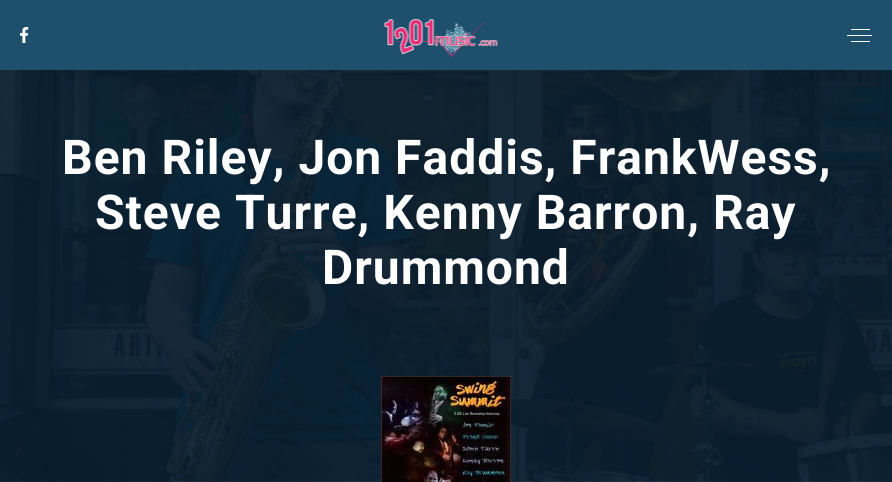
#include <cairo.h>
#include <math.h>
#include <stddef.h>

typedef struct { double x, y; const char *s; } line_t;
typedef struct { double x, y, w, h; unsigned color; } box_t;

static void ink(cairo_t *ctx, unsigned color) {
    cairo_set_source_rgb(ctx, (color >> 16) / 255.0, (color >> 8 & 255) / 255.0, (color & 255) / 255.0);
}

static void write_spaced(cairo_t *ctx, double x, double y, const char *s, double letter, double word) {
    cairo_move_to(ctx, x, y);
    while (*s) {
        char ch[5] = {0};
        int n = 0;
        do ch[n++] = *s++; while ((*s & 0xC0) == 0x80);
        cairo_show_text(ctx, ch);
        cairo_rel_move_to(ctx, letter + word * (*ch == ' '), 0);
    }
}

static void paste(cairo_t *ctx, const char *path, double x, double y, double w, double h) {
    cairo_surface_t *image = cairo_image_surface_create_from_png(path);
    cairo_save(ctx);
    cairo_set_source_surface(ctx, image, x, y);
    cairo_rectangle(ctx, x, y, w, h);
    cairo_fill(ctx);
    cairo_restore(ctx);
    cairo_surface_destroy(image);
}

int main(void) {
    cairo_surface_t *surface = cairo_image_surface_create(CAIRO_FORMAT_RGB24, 892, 482);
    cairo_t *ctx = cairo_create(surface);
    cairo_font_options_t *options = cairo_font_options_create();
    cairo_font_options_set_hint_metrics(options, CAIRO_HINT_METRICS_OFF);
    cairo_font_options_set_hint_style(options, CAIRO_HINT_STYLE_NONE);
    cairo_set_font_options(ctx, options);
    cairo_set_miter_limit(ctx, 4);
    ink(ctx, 0xFFFFFF);
    cairo_paint(ctx);
    paste(ctx, "media/1.png", 0, 70, 892, 412);
    ink(ctx, 0x1E4F6D);
    cairo_rectangle(ctx, 0, 0, 892, 70);
    cairo_fill(ctx);
    paste(ctx, "media/2.png", 20, 27, 9, 16);
    paste(ctx, "media/3.png", 384, 19, 114, 38);
    {
        static const box_t items[] = {
            {851, 29, 19, 1, 0xFFFFFF},
            {847, 35, 25, 1, 0xFFFFFF},
            {851, 41, 19, 1, 0xFFFFFF},
        };
        for (size_t i = 0; i < sizeof items / sizeof *items; i++) {
            ink(ctx, items[i].color);
            cairo_rectangle(ctx, items[i].x, items[i].y, items[i].w, items[i].h);
            cairo_fill(ctx);
        }
    }
    cairo_select_font_face(ctx, "Roboto", CAIRO_FONT_SLANT_NORMAL, CAIRO_FONT_WEIGHT_BOLD);
    cairo_set_font_size(ctx, 48);
    {
        static const line_t items[] = {
            {62, 174, "Ben Riley, Jon Faddis, FrankWess,"},
            {95, 229, "Steve Turre, Kenny Barron, Ray"},
            {322, 284, "Drummond"},
        };
        for (size_t i = 0; i < sizeof items / sizeof *items; i++) {
            write_spaced(ctx, items[i].x, items[i].y, items[i].s, 1, 0);
        }
    }
    paste(ctx, "media/4.png", 381, 376, 130, 106);
    cairo_surface_write_to_png(surface, "image.png");
    cairo_font_options_destroy(options);
    cairo_destroy(ctx);
    cairo_surface_destroy(surface);
    return 0;
}
